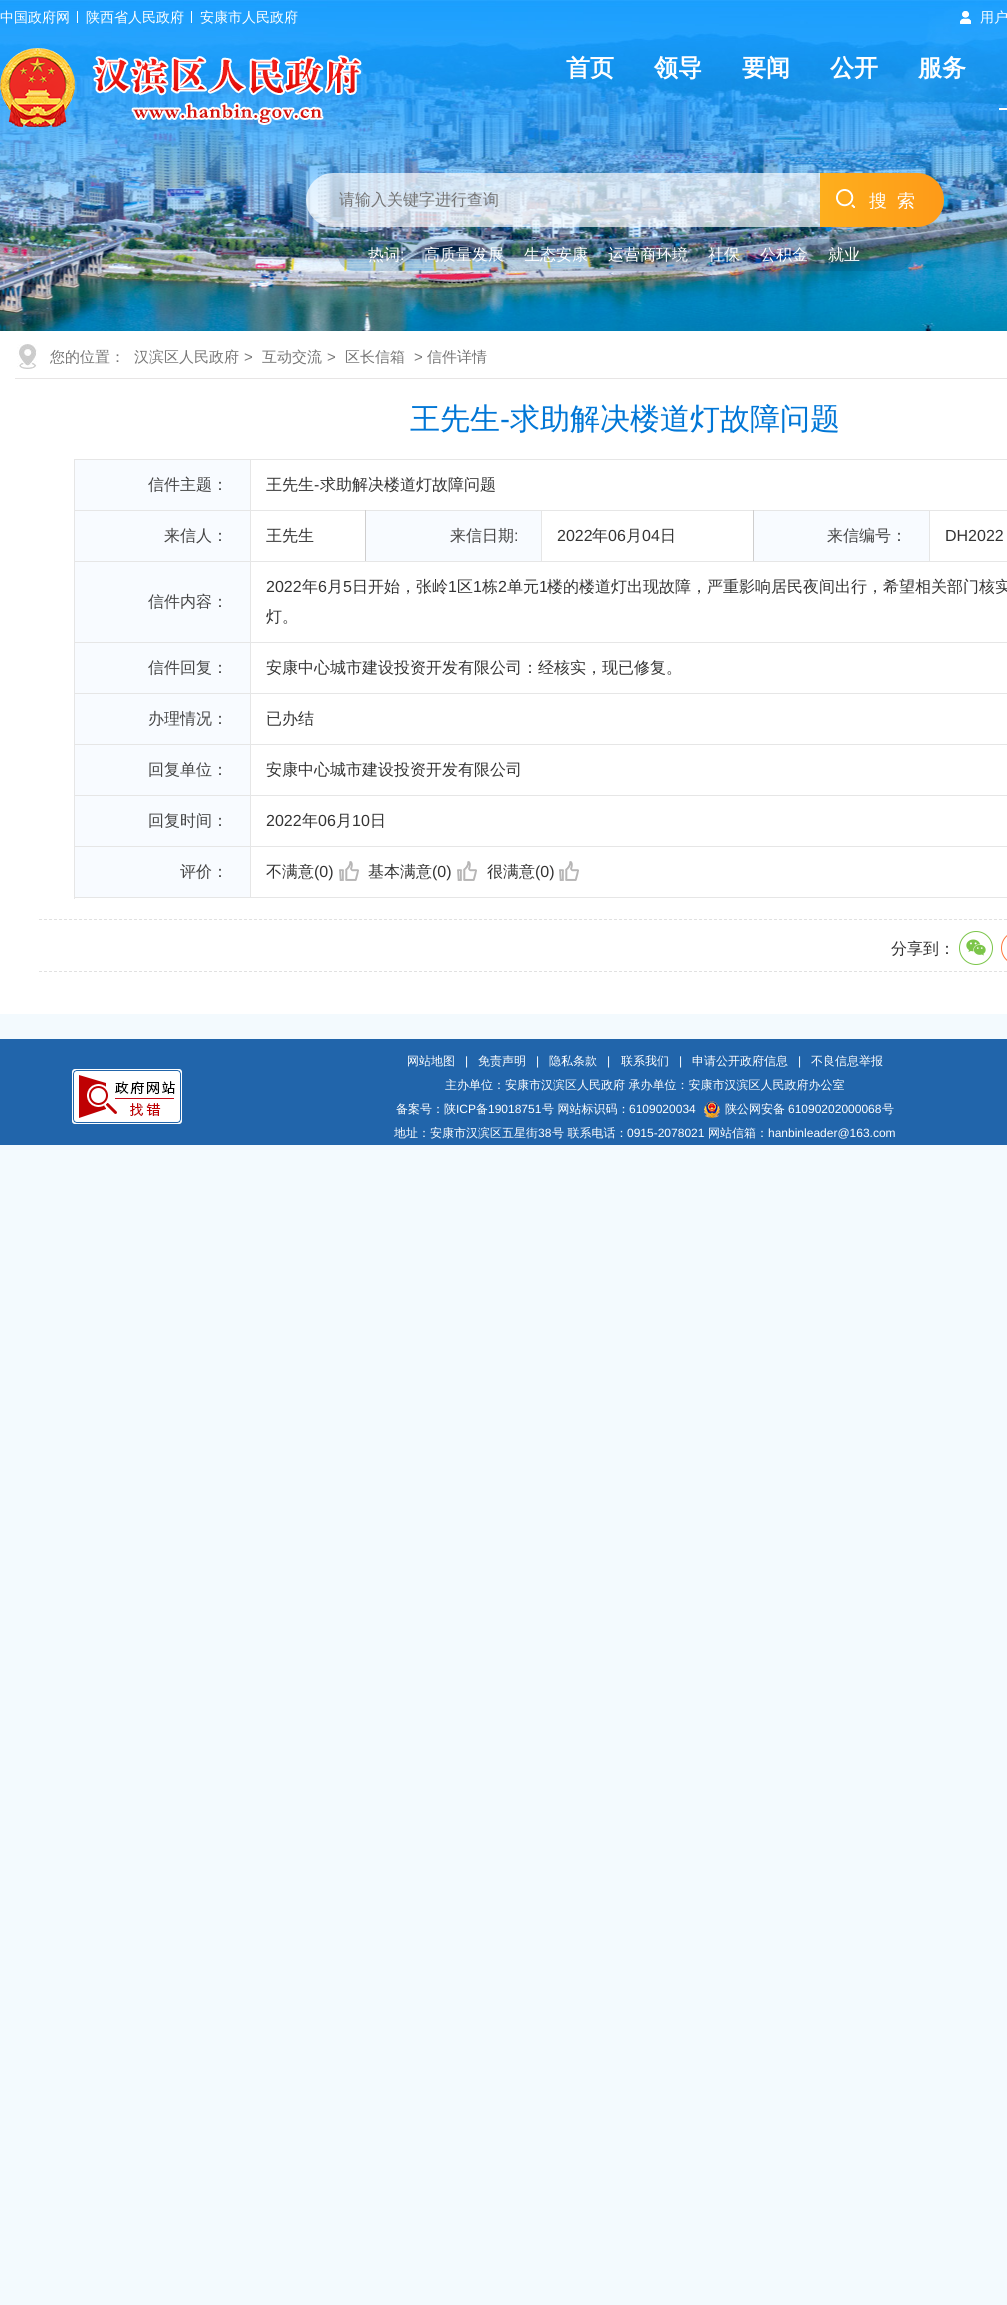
#include <cairo.h>
#include <math.h>
#include <stddef.h>

typedef struct { double x, y; const char *s; } line_t;
typedef struct { double x, y, w, h; unsigned color; } box_t;

static void ink(cairo_t *ctx, unsigned color) {
    cairo_set_source_rgb(ctx, (color >> 16) / 255.0, (color >> 8 & 255) / 255.0, (color & 255) / 255.0);
}

static void write_spaced(cairo_t *ctx, double x, double y, const char *s, double letter, double word) {
    cairo_move_to(ctx, x, y);
    while (*s) {
        char ch[5] = {0};
        int n = 0;
        do ch[n++] = *s++; while ((*s & 0xC0) == 0x80);
        cairo_show_text(ctx, ch);
        cairo_rel_move_to(ctx, letter + word * (*ch == ' '), 0);
    }
}

static void round_path(cairo_t *ctx, double x, double y, double w, double h, double r) {
    cairo_new_sub_path(ctx);
    cairo_arc(ctx, x + w - r, y + h - r, r, 0, M_PI / 2);
    cairo_arc(ctx, x + r, y + h - r, r, M_PI / 2, M_PI);
    cairo_arc(ctx, x + r, y + r, r, M_PI, 1.5 * M_PI);
    cairo_arc(ctx, x + w - r, y + r, r, 1.5 * M_PI, 2 * M_PI);
    cairo_close_path(ctx);
}

static void paste(cairo_t *ctx, const char *path, double x, double y, double w, double h) {
    cairo_surface_t *image = cairo_image_surface_create_from_png(path);
    cairo_save(ctx);
    cairo_set_source_surface(ctx, image, x, y);
    cairo_rectangle(ctx, x, y, w, h);
    cairo_fill(ctx);
    cairo_restore(ctx);
    cairo_surface_destroy(image);
}

int main(void) {
    cairo_surface_t *surface = cairo_image_surface_create(CAIRO_FORMAT_RGB24, 1007, 2305);
    cairo_t *ctx = cairo_create(surface);
    cairo_font_options_t *options = cairo_font_options_create();
    cairo_font_options_set_hint_metrics(options, CAIRO_HINT_METRICS_OFF);
    cairo_font_options_set_hint_style(options, CAIRO_HINT_STYLE_NONE);
    cairo_set_font_options(ctx, options);
    cairo_set_miter_limit(ctx, 4);
    cairo_pattern_t *gradient;
    ink(ctx, 0xF3FAFE);
    cairo_paint(ctx);
    paste(ctx, "media/1.png", 0, 0, 1007, 331);
    cairo_select_font_face(ctx, "WenQuanYi Zen Hei Medium", CAIRO_FONT_SLANT_NORMAL, CAIRO_FONT_WEIGHT_NORMAL);
    cairo_set_font_size(ctx, 14);
    ink(ctx, 0xFFFFFF);
    cairo_move_to(ctx, 0, 22);
    cairo_show_text(ctx, "中国政府网");
    cairo_rectangle(ctx, 77, 11, 1, 12);
    cairo_fill(ctx);
    cairo_move_to(ctx, 86, 22);
    cairo_show_text(ctx, "陕西省人民政府");
    cairo_rectangle(ctx, 191, 11, 1, 12);
    cairo_fill(ctx);
    cairo_move_to(ctx, 200, 22);
    cairo_show_text(ctx, "安康市人民政府");
    paste(ctx, "media/2.png", 960, 11, 11, 13);
    cairo_move_to(ctx, 980, 22);
    cairo_show_text(ctx, "用户");
    paste(ctx, "media/3.png", 0, 48, 362, 80);
    cairo_select_font_face(ctx, "WenQuanYi Zen Hei", CAIRO_FONT_SLANT_NORMAL, CAIRO_FONT_WEIGHT_BOLD);
    cairo_set_font_size(ctx, 24);
    {
        static const line_t items[] = {
            {566, 76, "首页"},
            {654, 76, "领导"},
            {742, 76, "要闻"},
            {830, 76, "公开"},
            {918, 76, "服务"},
        };
        for (size_t i = 0; i < sizeof items / sizeof *items; i++) {
            cairo_move_to(ctx, items[i].x, items[i].y);
            cairo_show_text(ctx, items[i].s);
        }
    }
    cairo_rectangle(ctx, 999, 108, 8, 2);
    cairo_fill(ctx);
    paste(ctx, "media/4.png", 306, 173, 514, 54);
    cairo_select_font_face(ctx, "WenQuanYi Zen Hei Medium", CAIRO_FONT_SLANT_NORMAL, CAIRO_FONT_WEIGHT_NORMAL);
    cairo_set_font_size(ctx, 16);
    ink(ctx, 0x757575);
    cairo_move_to(ctx, 339, 205);
    cairo_show_text(ctx, "请输入关键字进行查询");
    gradient = cairo_pattern_create_linear(820, 200, 944, 200);
    cairo_pattern_add_color_stop_rgba(gradient, 0, 0.996, 0.686, 0.114, 1);
    cairo_pattern_add_color_stop_rgba(gradient, 1, 0.996, 0.604, 0.094, 1);
    cairo_set_source(ctx, gradient);
    cairo_pattern_destroy(gradient);
    cairo_new_path(ctx);
    cairo_move_to(ctx, 820, 173);
    cairo_line_to(ctx, 917, 173);
    cairo_curve_to(ctx, 932, 173, 944, 185, 944, 200);
    cairo_curve_to(ctx, 944, 215, 932, 227, 917, 227);
    cairo_line_to(ctx, 820, 227);
    cairo_close_path(ctx);
    cairo_fill(ctx);
    paste(ctx, "media/5.png", 836, 189, 19, 19);
    cairo_save(ctx);
    cairo_rectangle(ctx, 820, 173, 124, 36);
    cairo_clip(ctx);
    cairo_set_font_size(ctx, 18);
    ink(ctx, 0xFFFFFF);
    write_spaced(ctx, 869, 207, "搜索", 10, 0);
    cairo_restore(ctx);
    cairo_set_source_rgba(ctx, 0, 0.255, 0.431, 0.2);
    round_path(ctx, 338, 239, 574, 32, 16);
    cairo_fill(ctx);
    ink(ctx, 0xFFFFFF);
    cairo_move_to(ctx, 368, 260);
    cairo_show_text(ctx, "热词");
    cairo_select_font_face(ctx, "Liberation Sans", CAIRO_FONT_SLANT_NORMAL, CAIRO_FONT_WEIGHT_NORMAL);
    cairo_move_to(ctx, 400, 260);
    cairo_show_text(ctx, ":");
    cairo_select_font_face(ctx, "WenQuanYi Zen Hei Medium", CAIRO_FONT_SLANT_NORMAL, CAIRO_FONT_WEIGHT_NORMAL);
    {
        static const line_t items[] = {
            {424, 260, "高质量发展"},
            {524, 260, "生态安康"},
            {608, 260, "运营商环境"},
            {708, 260, "社保"},
            {760, 260, "公积金"},
            {828, 260, "就业"},
        };
        for (size_t i = 0; i < sizeof items / sizeof *items; i++) {
            cairo_move_to(ctx, items[i].x, items[i].y);
            cairo_show_text(ctx, items[i].s);
        }
    }
    cairo_rectangle(ctx, 0, 331, 1007, 683);
    cairo_fill(ctx);
    paste(ctx, "media/6.png", 17, 344, 20, 25);
    ink(ctx, 0xE7E5E5);
    cairo_rectangle(ctx, 15, 378, 992, 1);
    cairo_fill(ctx);
    cairo_set_font_size(ctx, 15);
    ink(ctx, 0x757575);
    cairo_move_to(ctx, 50, 362);
    cairo_show_text(ctx, "您的位置：");
    cairo_move_to(ctx, 134, 362);
    cairo_show_text(ctx, "汉滨区人民政府");
    cairo_select_font_face(ctx, "Liberation Sans", CAIRO_FONT_SLANT_NORMAL, CAIRO_FONT_WEIGHT_NORMAL);
    cairo_move_to(ctx, 244, 362);
    cairo_show_text(ctx, ">");
    cairo_select_font_face(ctx, "WenQuanYi Zen Hei Medium", CAIRO_FONT_SLANT_NORMAL, CAIRO_FONT_WEIGHT_NORMAL);
    cairo_move_to(ctx, 262, 362);
    cairo_show_text(ctx, "互动交流");
    cairo_select_font_face(ctx, "Liberation Sans", CAIRO_FONT_SLANT_NORMAL, CAIRO_FONT_WEIGHT_NORMAL);
    cairo_move_to(ctx, 327, 362);
    cairo_show_text(ctx, ">");
    cairo_select_font_face(ctx, "WenQuanYi Zen Hei Medium", CAIRO_FONT_SLANT_NORMAL, CAIRO_FONT_WEIGHT_NORMAL);
    cairo_move_to(ctx, 345, 362);
    cairo_show_text(ctx, "区长信箱");
    cairo_select_font_face(ctx, "Liberation Sans", CAIRO_FONT_SLANT_NORMAL, CAIRO_FONT_WEIGHT_NORMAL);
    cairo_move_to(ctx, 414, 362);
    cairo_show_text(ctx, ">");
    cairo_select_font_face(ctx, "WenQuanYi Zen Hei Medium", CAIRO_FONT_SLANT_NORMAL, CAIRO_FONT_WEIGHT_NORMAL);
    cairo_move_to(ctx, 427, 362);
    cairo_show_text(ctx, "信件详情");
    cairo_set_font_size(ctx, 30);
    ink(ctx, 0x0076D6);
    cairo_move_to(ctx, 410, 429);
    cairo_show_text(ctx, "王先生");
    cairo_select_font_face(ctx, "Liberation Sans", CAIRO_FONT_SLANT_NORMAL, CAIRO_FONT_WEIGHT_NORMAL);
    cairo_move_to(ctx, 500, 429);
    cairo_show_text(ctx, "-");
    cairo_select_font_face(ctx, "WenQuanYi Zen Hei Medium", CAIRO_FONT_SLANT_NORMAL, CAIRO_FONT_WEIGHT_NORMAL);
    cairo_move_to(ctx, 510, 429);
    cairo_show_text(ctx, "求助解决楼道灯故障问题");
    {
        static const box_t items[] = {
            {74, 897, 933, 1, 0xE6E6E6},
            {75, 460, 175, 50, 0xF8FBFF},
            {74, 459, 933, 1, 0xE6E6E6},
            {74, 459, 1, 51, 0xE6E6E6},
        };
        for (size_t i = 0; i < sizeof items / sizeof *items; i++) {
            ink(ctx, items[i].color);
            cairo_rectangle(ctx, items[i].x, items[i].y, items[i].w, items[i].h);
            cairo_fill(ctx);
        }
    }
    cairo_set_font_size(ctx, 16);
    ink(ctx, 0x444444);
    cairo_move_to(ctx, 148, 490);
    cairo_show_text(ctx, "信件主题：");
    ink(ctx, 0xE6E6E6);
    cairo_rectangle(ctx, 250, 459, 1, 51);
    cairo_fill(ctx);
    ink(ctx, 0x333333);
    cairo_move_to(ctx, 266, 490);
    cairo_show_text(ctx, "王先生");
    cairo_select_font_face(ctx, "Liberation Sans", CAIRO_FONT_SLANT_NORMAL, CAIRO_FONT_WEIGHT_NORMAL);
    cairo_move_to(ctx, 314, 490);
    cairo_show_text(ctx, "-");
    cairo_select_font_face(ctx, "WenQuanYi Zen Hei Medium", CAIRO_FONT_SLANT_NORMAL, CAIRO_FONT_WEIGHT_NORMAL);
    cairo_move_to(ctx, 320, 490);
    cairo_show_text(ctx, "求助解决楼道灯故障问题");
    {
        static const box_t items[] = {
            {75, 511, 175, 50, 0xF8FBFF},
            {74, 510, 933, 1, 0xE6E6E6},
            {74, 510, 1, 51, 0xE6E6E6},
        };
        for (size_t i = 0; i < sizeof items / sizeof *items; i++) {
            ink(ctx, items[i].color);
            cairo_rectangle(ctx, items[i].x, items[i].y, items[i].w, items[i].h);
            cairo_fill(ctx);
        }
    }
    ink(ctx, 0x444444);
    cairo_move_to(ctx, 164, 541);
    cairo_show_text(ctx, "来信人：");
    ink(ctx, 0xE6E6E6);
    cairo_rectangle(ctx, 250, 510, 1, 51);
    cairo_fill(ctx);
    ink(ctx, 0x333333);
    cairo_move_to(ctx, 266, 541);
    cairo_show_text(ctx, "王先生");
    ink(ctx, 0xF8FBFF);
    cairo_rectangle(ctx, 366, 511, 175, 50);
    cairo_fill(ctx);
    ink(ctx, 0xCFCECE);
    cairo_rectangle(ctx, 365, 510, 1, 51);
    cairo_fill(ctx);
    ink(ctx, 0x444444);
    cairo_move_to(ctx, 450, 541);
    cairo_show_text(ctx, "来信日期");
    cairo_select_font_face(ctx, "Liberation Sans", CAIRO_FONT_SLANT_NORMAL, CAIRO_FONT_WEIGHT_NORMAL);
    cairo_move_to(ctx, 514, 541);
    cairo_show_text(ctx, ":");
    ink(ctx, 0xE6E6E6);
    cairo_rectangle(ctx, 541, 510, 1, 51);
    cairo_fill(ctx);
    ink(ctx, 0x333333);
    cairo_move_to(ctx, 557, 541);
    cairo_show_text(ctx, "2022");
    cairo_select_font_face(ctx, "WenQuanYi Zen Hei Medium", CAIRO_FONT_SLANT_NORMAL, CAIRO_FONT_WEIGHT_NORMAL);
    cairo_move_to(ctx, 592, 541);
    cairo_show_text(ctx, "年");
    cairo_select_font_face(ctx, "Liberation Sans", CAIRO_FONT_SLANT_NORMAL, CAIRO_FONT_WEIGHT_NORMAL);
    cairo_move_to(ctx, 608, 541);
    cairo_show_text(ctx, "06");
    cairo_select_font_face(ctx, "WenQuanYi Zen Hei Medium", CAIRO_FONT_SLANT_NORMAL, CAIRO_FONT_WEIGHT_NORMAL);
    cairo_move_to(ctx, 626, 541);
    cairo_show_text(ctx, "月");
    cairo_select_font_face(ctx, "Liberation Sans", CAIRO_FONT_SLANT_NORMAL, CAIRO_FONT_WEIGHT_NORMAL);
    cairo_move_to(ctx, 642, 541);
    cairo_show_text(ctx, "04");
    cairo_select_font_face(ctx, "WenQuanYi Zen Hei Medium", CAIRO_FONT_SLANT_NORMAL, CAIRO_FONT_WEIGHT_NORMAL);
    cairo_move_to(ctx, 660, 541);
    cairo_show_text(ctx, "日");
    ink(ctx, 0xF8FBFF);
    cairo_rectangle(ctx, 754, 511, 175, 50);
    cairo_fill(ctx);
    ink(ctx, 0xCFCECE);
    cairo_rectangle(ctx, 753, 510, 1, 51);
    cairo_fill(ctx);
    ink(ctx, 0x444444);
    cairo_move_to(ctx, 827, 541);
    cairo_show_text(ctx, "来信编号：");
    ink(ctx, 0xE6E6E6);
    cairo_rectangle(ctx, 929, 510, 1, 51);
    cairo_fill(ctx);
    cairo_select_font_face(ctx, "Liberation Sans", CAIRO_FONT_SLANT_NORMAL, CAIRO_FONT_WEIGHT_NORMAL);
    ink(ctx, 0x333333);
    cairo_move_to(ctx, 945, 541);
    cairo_show_text(ctx, "DH2022");
    {
        static const box_t items[] = {
            {75, 562, 175, 80, 0xF8FBFF},
            {74, 561, 933, 1, 0xE6E6E6},
            {74, 561, 1, 81, 0xE6E6E6},
        };
        for (size_t i = 0; i < sizeof items / sizeof *items; i++) {
            ink(ctx, items[i].color);
            cairo_rectangle(ctx, items[i].x, items[i].y, items[i].w, items[i].h);
            cairo_fill(ctx);
        }
    }
    cairo_select_font_face(ctx, "WenQuanYi Zen Hei Medium", CAIRO_FONT_SLANT_NORMAL, CAIRO_FONT_WEIGHT_NORMAL);
    ink(ctx, 0x444444);
    cairo_move_to(ctx, 148, 607);
    cairo_show_text(ctx, "信件内容：");
    ink(ctx, 0xE6E6E6);
    cairo_rectangle(ctx, 250, 561, 1, 81);
    cairo_fill(ctx);
    cairo_select_font_face(ctx, "Liberation Sans", CAIRO_FONT_SLANT_NORMAL, CAIRO_FONT_WEIGHT_NORMAL);
    ink(ctx, 0x333333);
    cairo_move_to(ctx, 266, 592);
    cairo_show_text(ctx, "2022");
    cairo_select_font_face(ctx, "WenQuanYi Zen Hei Medium", CAIRO_FONT_SLANT_NORMAL, CAIRO_FONT_WEIGHT_NORMAL);
    cairo_move_to(ctx, 302, 592);
    cairo_show_text(ctx, "年");
    cairo_select_font_face(ctx, "Liberation Sans", CAIRO_FONT_SLANT_NORMAL, CAIRO_FONT_WEIGHT_NORMAL);
    cairo_move_to(ctx, 318, 592);
    cairo_show_text(ctx, "6");
    cairo_select_font_face(ctx, "WenQuanYi Zen Hei Medium", CAIRO_FONT_SLANT_NORMAL, CAIRO_FONT_WEIGHT_NORMAL);
    cairo_move_to(ctx, 327, 592);
    cairo_show_text(ctx, "月");
    cairo_select_font_face(ctx, "Liberation Sans", CAIRO_FONT_SLANT_NORMAL, CAIRO_FONT_WEIGHT_NORMAL);
    cairo_move_to(ctx, 343, 592);
    cairo_show_text(ctx, "5");
    cairo_select_font_face(ctx, "WenQuanYi Zen Hei Medium", CAIRO_FONT_SLANT_NORMAL, CAIRO_FONT_WEIGHT_NORMAL);
    cairo_move_to(ctx, 352, 592);
    cairo_show_text(ctx, "日开始，张岭");
    cairo_select_font_face(ctx, "Liberation Sans", CAIRO_FONT_SLANT_NORMAL, CAIRO_FONT_WEIGHT_NORMAL);
    cairo_move_to(ctx, 448, 592);
    cairo_show_text(ctx, "1");
    cairo_select_font_face(ctx, "WenQuanYi Zen Hei Medium", CAIRO_FONT_SLANT_NORMAL, CAIRO_FONT_WEIGHT_NORMAL);
    cairo_move_to(ctx, 457, 592);
    cairo_show_text(ctx, "区");
    cairo_select_font_face(ctx, "Liberation Sans", CAIRO_FONT_SLANT_NORMAL, CAIRO_FONT_WEIGHT_NORMAL);
    cairo_move_to(ctx, 473, 592);
    cairo_show_text(ctx, "1");
    cairo_select_font_face(ctx, "WenQuanYi Zen Hei Medium", CAIRO_FONT_SLANT_NORMAL, CAIRO_FONT_WEIGHT_NORMAL);
    cairo_move_to(ctx, 482, 592);
    cairo_show_text(ctx, "栋");
    cairo_select_font_face(ctx, "Liberation Sans", CAIRO_FONT_SLANT_NORMAL, CAIRO_FONT_WEIGHT_NORMAL);
    cairo_move_to(ctx, 498, 592);
    cairo_show_text(ctx, "2");
    cairo_select_font_face(ctx, "WenQuanYi Zen Hei Medium", CAIRO_FONT_SLANT_NORMAL, CAIRO_FONT_WEIGHT_NORMAL);
    cairo_move_to(ctx, 507, 592);
    cairo_show_text(ctx, "单元");
    cairo_select_font_face(ctx, "Liberation Sans", CAIRO_FONT_SLANT_NORMAL, CAIRO_FONT_WEIGHT_NORMAL);
    cairo_move_to(ctx, 539, 592);
    cairo_show_text(ctx, "1");
    cairo_select_font_face(ctx, "WenQuanYi Zen Hei Medium", CAIRO_FONT_SLANT_NORMAL, CAIRO_FONT_WEIGHT_NORMAL);
    cairo_move_to(ctx, 547, 592);
    cairo_show_text(ctx, "楼的楼道灯出现故障，严重影响居民夜间出行，希望相关部门核实");
    cairo_move_to(ctx, 266, 622);
    cairo_show_text(ctx, "灯。");
    {
        static const box_t items[] = {
            {75, 643, 175, 50, 0xF8FBFF},
            {74, 642, 933, 1, 0xE6E6E6},
            {74, 642, 1, 51, 0xE6E6E6},
        };
        for (size_t i = 0; i < sizeof items / sizeof *items; i++) {
            ink(ctx, items[i].color);
            cairo_rectangle(ctx, items[i].x, items[i].y, items[i].w, items[i].h);
            cairo_fill(ctx);
        }
    }
    ink(ctx, 0x444444);
    cairo_move_to(ctx, 148, 673);
    cairo_show_text(ctx, "信件回复：");
    ink(ctx, 0xE6E6E6);
    cairo_rectangle(ctx, 250, 642, 1, 51);
    cairo_fill(ctx);
    ink(ctx, 0x333333);
    cairo_move_to(ctx, 266, 673);
    cairo_show_text(ctx, "安康中心城市建设投资开发有限公司：经核实，现已修复。");
    {
        static const box_t items[] = {
            {75, 694, 175, 50, 0xF8FBFF},
            {74, 693, 933, 1, 0xE6E6E6},
            {74, 693, 1, 51, 0xE6E6E6},
        };
        for (size_t i = 0; i < sizeof items / sizeof *items; i++) {
            ink(ctx, items[i].color);
            cairo_rectangle(ctx, items[i].x, items[i].y, items[i].w, items[i].h);
            cairo_fill(ctx);
        }
    }
    ink(ctx, 0x444444);
    cairo_move_to(ctx, 148, 724);
    cairo_show_text(ctx, "办理情况：");
    ink(ctx, 0xE6E6E6);
    cairo_rectangle(ctx, 250, 693, 1, 51);
    cairo_fill(ctx);
    ink(ctx, 0x333333);
    cairo_move_to(ctx, 266, 724);
    cairo_show_text(ctx, "已办结");
    {
        static const box_t items[] = {
            {75, 745, 175, 50, 0xF8FBFF},
            {74, 744, 933, 1, 0xE6E6E6},
            {74, 744, 1, 51, 0xE6E6E6},
        };
        for (size_t i = 0; i < sizeof items / sizeof *items; i++) {
            ink(ctx, items[i].color);
            cairo_rectangle(ctx, items[i].x, items[i].y, items[i].w, items[i].h);
            cairo_fill(ctx);
        }
    }
    ink(ctx, 0x444444);
    cairo_move_to(ctx, 148, 775);
    cairo_show_text(ctx, "回复单位：");
    ink(ctx, 0xE6E6E6);
    cairo_rectangle(ctx, 250, 744, 1, 51);
    cairo_fill(ctx);
    ink(ctx, 0x333333);
    cairo_move_to(ctx, 266, 775);
    cairo_show_text(ctx, "安康中心城市建设投资开发有限公司");
    {
        static const box_t items[] = {
            {75, 796, 175, 50, 0xF8FBFF},
            {74, 795, 933, 1, 0xE6E6E6},
            {74, 795, 1, 51, 0xE6E6E6},
        };
        for (size_t i = 0; i < sizeof items / sizeof *items; i++) {
            ink(ctx, items[i].color);
            cairo_rectangle(ctx, items[i].x, items[i].y, items[i].w, items[i].h);
            cairo_fill(ctx);
        }
    }
    ink(ctx, 0x444444);
    cairo_move_to(ctx, 148, 826);
    cairo_show_text(ctx, "回复时间：");
    ink(ctx, 0xE6E6E6);
    cairo_rectangle(ctx, 250, 795, 1, 51);
    cairo_fill(ctx);
    cairo_select_font_face(ctx, "Liberation Sans", CAIRO_FONT_SLANT_NORMAL, CAIRO_FONT_WEIGHT_NORMAL);
    ink(ctx, 0x333333);
    cairo_move_to(ctx, 266, 826);
    cairo_show_text(ctx, "2022");
    cairo_select_font_face(ctx, "WenQuanYi Zen Hei Medium", CAIRO_FONT_SLANT_NORMAL, CAIRO_FONT_WEIGHT_NORMAL);
    cairo_move_to(ctx, 302, 826);
    cairo_show_text(ctx, "年");
    cairo_select_font_face(ctx, "Liberation Sans", CAIRO_FONT_SLANT_NORMAL, CAIRO_FONT_WEIGHT_NORMAL);
    cairo_move_to(ctx, 318, 826);
    cairo_show_text(ctx, "06");
    cairo_select_font_face(ctx, "WenQuanYi Zen Hei Medium", CAIRO_FONT_SLANT_NORMAL, CAIRO_FONT_WEIGHT_NORMAL);
    cairo_move_to(ctx, 336, 826);
    cairo_show_text(ctx, "月");
    cairo_select_font_face(ctx, "Liberation Sans", CAIRO_FONT_SLANT_NORMAL, CAIRO_FONT_WEIGHT_NORMAL);
    cairo_move_to(ctx, 352, 826);
    cairo_show_text(ctx, "10");
    cairo_select_font_face(ctx, "WenQuanYi Zen Hei Medium", CAIRO_FONT_SLANT_NORMAL, CAIRO_FONT_WEIGHT_NORMAL);
    cairo_move_to(ctx, 370, 826);
    cairo_show_text(ctx, "日");
    {
        static const box_t items[] = {
            {75, 847, 175, 50, 0xF8FBFF},
            {74, 846, 933, 1, 0xE6E6E6},
            {74, 846, 1, 51, 0xE6E6E6},
        };
        for (size_t i = 0; i < sizeof items / sizeof *items; i++) {
            ink(ctx, items[i].color);
            cairo_rectangle(ctx, items[i].x, items[i].y, items[i].w, items[i].h);
            cairo_fill(ctx);
        }
    }
    ink(ctx, 0x444444);
    cairo_move_to(ctx, 180, 877);
    cairo_show_text(ctx, "评价：");
    ink(ctx, 0xE6E6E6);
    cairo_rectangle(ctx, 250, 846, 1, 51);
    cairo_fill(ctx);
    ink(ctx, 0x333333);
    cairo_move_to(ctx, 266, 877);
    cairo_show_text(ctx, "不满意");
    cairo_select_font_face(ctx, "Liberation Sans", CAIRO_FONT_SLANT_NORMAL, CAIRO_FONT_WEIGHT_NORMAL);
    cairo_move_to(ctx, 314, 877);
    cairo_show_text(ctx, "(0)");
    paste(ctx, "media/7.png", 339, 861, 20, 20);
    cairo_select_font_face(ctx, "WenQuanYi Zen Hei Medium", CAIRO_FONT_SLANT_NORMAL, CAIRO_FONT_WEIGHT_NORMAL);
    cairo_move_to(ctx, 368, 877);
    cairo_show_text(ctx, "基本满意");
    cairo_select_font_face(ctx, "Liberation Sans", CAIRO_FONT_SLANT_NORMAL, CAIRO_FONT_WEIGHT_NORMAL);
    cairo_move_to(ctx, 432, 877);
    cairo_show_text(ctx, "(0)");
    paste(ctx, "media/7.png", 457, 861, 20, 20);
    cairo_select_font_face(ctx, "WenQuanYi Zen Hei Medium", CAIRO_FONT_SLANT_NORMAL, CAIRO_FONT_WEIGHT_NORMAL);
    cairo_move_to(ctx, 487, 877);
    cairo_show_text(ctx, "很满意");
    cairo_select_font_face(ctx, "Liberation Sans", CAIRO_FONT_SLANT_NORMAL, CAIRO_FONT_WEIGHT_NORMAL);
    cairo_move_to(ctx, 535, 877);
    cairo_show_text(ctx, "(0)");
    paste(ctx, "media/7.png", 559, 861, 20, 20);
    ink(ctx, 0xE6E6E6);
    cairo_rectangle(ctx, 74, 898, 1, 1);
    cairo_fill(ctx);
    cairo_new_path(ctx);
    cairo_move_to(ctx, 39, 919.5);
    cairo_line_to(ctx, 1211, 919.5);
    ink(ctx, 0xE1E1E1);
    cairo_set_line_width(ctx, 1);
    cairo_set_dash(ctx, (double[]){3, 2}, 2, 0);
    cairo_stroke(ctx);
    cairo_new_path(ctx);
    cairo_move_to(ctx, 39, 971.5);
    cairo_line_to(ctx, 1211, 971.5);
    cairo_stroke(ctx);
    cairo_select_font_face(ctx, "WenQuanYi Zen Hei Medium", CAIRO_FONT_SLANT_NORMAL, CAIRO_FONT_WEIGHT_NORMAL);
    ink(ctx, 0x333333);
    cairo_move_to(ctx, 891, 954);
    cairo_show_text(ctx, "分享到：");
    cairo_new_path(ctx);
    cairo_arc(ctx, 976, 948, 16.5, 0, 2 * M_PI);
    ink(ctx, 0x7BC549);
    cairo_set_dash(ctx, NULL, 0, 0);
    cairo_stroke(ctx);
    paste(ctx, "media/8.png", 966, 939, 20, 17);
    round_path(ctx, 1001.5, 931.5, 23, 33, 16.5);
    ink(ctx, 0xFF763B);
    cairo_stroke(ctx);
    ink(ctx, 0x2165AB);
    cairo_rectangle(ctx, 0, 1039, 1007, 106);
    cairo_fill(ctx);
    paste(ctx, "media/9.png", 72, 1069, 110, 55);
    cairo_set_font_size(ctx, 12);
    ink(ctx, 0xFFFFFF);
    cairo_move_to(ctx, 407, 1065);
    cairo_show_text(ctx, "网站地图");
    cairo_select_font_face(ctx, "Liberation Sans", CAIRO_FONT_SLANT_NORMAL, CAIRO_FONT_WEIGHT_NORMAL);
    cairo_move_to(ctx, 465, 1065);
    cairo_show_text(ctx, "|");
    cairo_select_font_face(ctx, "WenQuanYi Zen Hei Medium", CAIRO_FONT_SLANT_NORMAL, CAIRO_FONT_WEIGHT_NORMAL);
    cairo_move_to(ctx, 478, 1065);
    cairo_show_text(ctx, "免责声明");
    cairo_select_font_face(ctx, "Liberation Sans", CAIRO_FONT_SLANT_NORMAL, CAIRO_FONT_WEIGHT_NORMAL);
    cairo_move_to(ctx, 536, 1065);
    cairo_show_text(ctx, "|");
    cairo_select_font_face(ctx, "WenQuanYi Zen Hei Medium", CAIRO_FONT_SLANT_NORMAL, CAIRO_FONT_WEIGHT_NORMAL);
    cairo_move_to(ctx, 549, 1065);
    cairo_show_text(ctx, "隐私条款");
    cairo_select_font_face(ctx, "Liberation Sans", CAIRO_FONT_SLANT_NORMAL, CAIRO_FONT_WEIGHT_NORMAL);
    cairo_move_to(ctx, 607, 1065);
    cairo_show_text(ctx, "|");
    cairo_select_font_face(ctx, "WenQuanYi Zen Hei Medium", CAIRO_FONT_SLANT_NORMAL, CAIRO_FONT_WEIGHT_NORMAL);
    cairo_move_to(ctx, 621, 1065);
    cairo_show_text(ctx, "联系我们");
    cairo_select_font_face(ctx, "Liberation Sans", CAIRO_FONT_SLANT_NORMAL, CAIRO_FONT_WEIGHT_NORMAL);
    cairo_move_to(ctx, 679, 1065);
    cairo_show_text(ctx, "|");
    cairo_select_font_face(ctx, "WenQuanYi Zen Hei Medium", CAIRO_FONT_SLANT_NORMAL, CAIRO_FONT_WEIGHT_NORMAL);
    cairo_move_to(ctx, 692, 1065);
    cairo_show_text(ctx, "申请公开政府信息");
    cairo_select_font_face(ctx, "Liberation Sans", CAIRO_FONT_SLANT_NORMAL, CAIRO_FONT_WEIGHT_NORMAL);
    cairo_move_to(ctx, 798, 1065);
    cairo_show_text(ctx, "|");
    cairo_select_font_face(ctx, "WenQuanYi Zen Hei Medium", CAIRO_FONT_SLANT_NORMAL, CAIRO_FONT_WEIGHT_NORMAL);
    {
        static const line_t items[] = {
            {811, 1065, "不良信息举报"},
            {445, 1089, "主办单位：安康市汉滨区人民政府 承办单位：安康市汉滨区人民政府办公室"},
            {396, 1113, "备案号：陕"},
        };
        for (size_t i = 0; i < sizeof items / sizeof *items; i++) {
            cairo_move_to(ctx, items[i].x, items[i].y);
            cairo_show_text(ctx, items[i].s);
        }
    }
    cairo_select_font_face(ctx, "Liberation Sans", CAIRO_FONT_SLANT_NORMAL, CAIRO_FONT_WEIGHT_NORMAL);
    cairo_move_to(ctx, 456, 1113);
    cairo_show_text(ctx, "ICP");
    cairo_select_font_face(ctx, "WenQuanYi Zen Hei Medium", CAIRO_FONT_SLANT_NORMAL, CAIRO_FONT_WEIGHT_NORMAL);
    cairo_move_to(ctx, 476, 1113);
    cairo_show_text(ctx, "备");
    cairo_select_font_face(ctx, "Liberation Sans", CAIRO_FONT_SLANT_NORMAL, CAIRO_FONT_WEIGHT_NORMAL);
    cairo_move_to(ctx, 488, 1113);
    cairo_show_text(ctx, "19018751");
    cairo_select_font_face(ctx, "WenQuanYi Zen Hei Medium", CAIRO_FONT_SLANT_NORMAL, CAIRO_FONT_WEIGHT_NORMAL);
    cairo_move_to(ctx, 542, 1113);
    cairo_show_text(ctx, "号 网站标识码：");
    cairo_select_font_face(ctx, "Liberation Sans", CAIRO_FONT_SLANT_NORMAL, CAIRO_FONT_WEIGHT_NORMAL);
    cairo_move_to(ctx, 629, 1113);
    cairo_show_text(ctx, "6109020034");
    paste(ctx, "media/10.png", 704, 1101, 16, 17);
    cairo_select_font_face(ctx, "WenQuanYi Zen Hei Medium", CAIRO_FONT_SLANT_NORMAL, CAIRO_FONT_WEIGHT_NORMAL);
    cairo_move_to(ctx, 725, 1113);
    cairo_show_text(ctx, "陕公网安备");
    cairo_select_font_face(ctx, "Liberation Sans", CAIRO_FONT_SLANT_NORMAL, CAIRO_FONT_WEIGHT_NORMAL);
    cairo_move_to(ctx, 788, 1113);
    cairo_show_text(ctx, "61090202000068");
    cairo_select_font_face(ctx, "WenQuanYi Zen Hei Medium", CAIRO_FONT_SLANT_NORMAL, CAIRO_FONT_WEIGHT_NORMAL);
    cairo_move_to(ctx, 882, 1113);
    cairo_show_text(ctx, "号");
    cairo_move_to(ctx, 394, 1137);
    cairo_show_text(ctx, "地址：安康市汉滨区五星街");
    cairo_select_font_face(ctx, "Liberation Sans", CAIRO_FONT_SLANT_NORMAL, CAIRO_FONT_WEIGHT_NORMAL);
    cairo_move_to(ctx, 538, 1137);
    cairo_show_text(ctx, "38");
    cairo_select_font_face(ctx, "WenQuanYi Zen Hei Medium", CAIRO_FONT_SLANT_NORMAL, CAIRO_FONT_WEIGHT_NORMAL);
    cairo_move_to(ctx, 552, 1137);
    cairo_show_text(ctx, "号 联系电话：");
    cairo_select_font_face(ctx, "Liberation Sans", CAIRO_FONT_SLANT_NORMAL, CAIRO_FONT_WEIGHT_NORMAL);
    cairo_move_to(ctx, 627, 1137);
    cairo_show_text(ctx, "0915-2078021");
    cairo_select_font_face(ctx, "WenQuanYi Zen Hei Medium", CAIRO_FONT_SLANT_NORMAL, CAIRO_FONT_WEIGHT_NORMAL);
    cairo_move_to(ctx, 708, 1137);
    cairo_show_text(ctx, "网站信箱：");
    cairo_select_font_face(ctx, "Liberation Sans", CAIRO_FONT_SLANT_NORMAL, CAIRO_FONT_WEIGHT_NORMAL);
    cairo_move_to(ctx, 768, 1137);
    cairo_show_text(ctx, "hanbinleader@163.com");
    cairo_surface_write_to_png(surface, "image.png");
    cairo_font_options_destroy(options);
    cairo_destroy(ctx);
    cairo_surface_destroy(surface);
    return 0;
}
